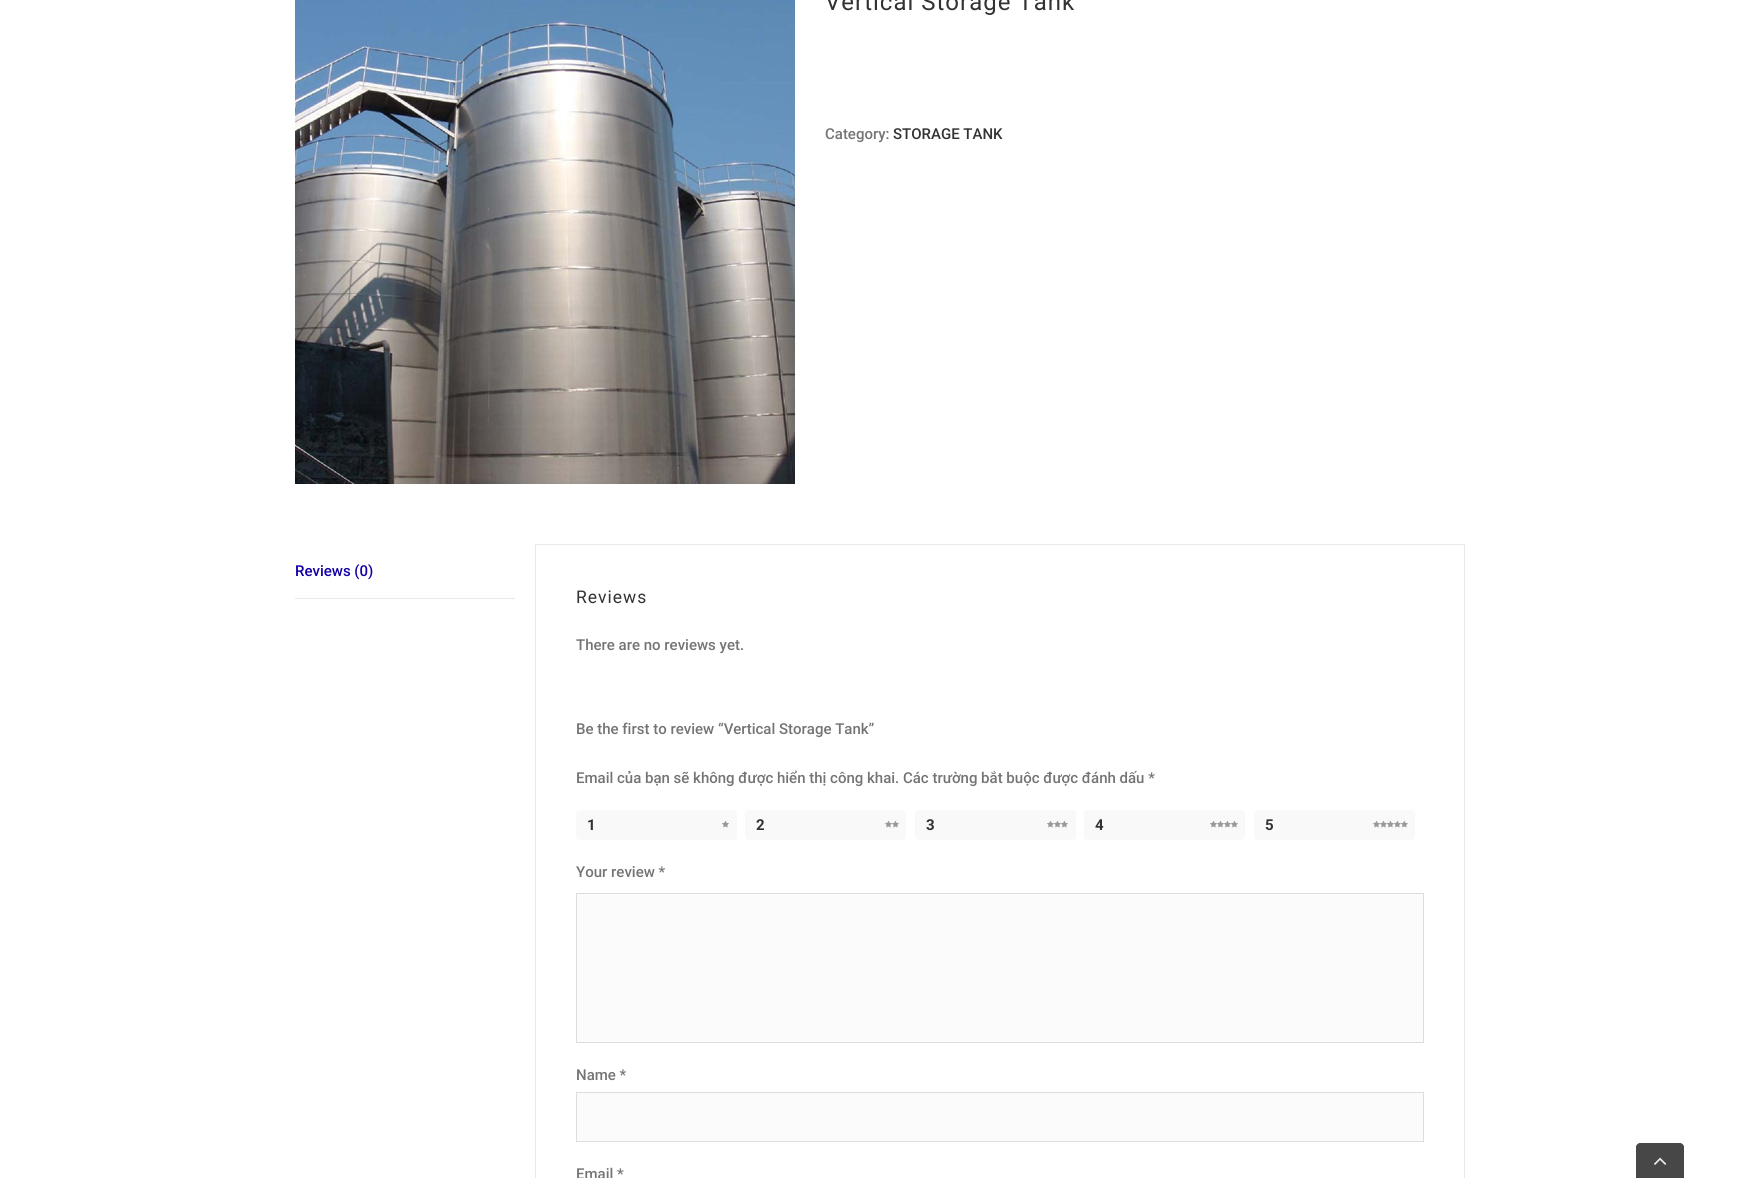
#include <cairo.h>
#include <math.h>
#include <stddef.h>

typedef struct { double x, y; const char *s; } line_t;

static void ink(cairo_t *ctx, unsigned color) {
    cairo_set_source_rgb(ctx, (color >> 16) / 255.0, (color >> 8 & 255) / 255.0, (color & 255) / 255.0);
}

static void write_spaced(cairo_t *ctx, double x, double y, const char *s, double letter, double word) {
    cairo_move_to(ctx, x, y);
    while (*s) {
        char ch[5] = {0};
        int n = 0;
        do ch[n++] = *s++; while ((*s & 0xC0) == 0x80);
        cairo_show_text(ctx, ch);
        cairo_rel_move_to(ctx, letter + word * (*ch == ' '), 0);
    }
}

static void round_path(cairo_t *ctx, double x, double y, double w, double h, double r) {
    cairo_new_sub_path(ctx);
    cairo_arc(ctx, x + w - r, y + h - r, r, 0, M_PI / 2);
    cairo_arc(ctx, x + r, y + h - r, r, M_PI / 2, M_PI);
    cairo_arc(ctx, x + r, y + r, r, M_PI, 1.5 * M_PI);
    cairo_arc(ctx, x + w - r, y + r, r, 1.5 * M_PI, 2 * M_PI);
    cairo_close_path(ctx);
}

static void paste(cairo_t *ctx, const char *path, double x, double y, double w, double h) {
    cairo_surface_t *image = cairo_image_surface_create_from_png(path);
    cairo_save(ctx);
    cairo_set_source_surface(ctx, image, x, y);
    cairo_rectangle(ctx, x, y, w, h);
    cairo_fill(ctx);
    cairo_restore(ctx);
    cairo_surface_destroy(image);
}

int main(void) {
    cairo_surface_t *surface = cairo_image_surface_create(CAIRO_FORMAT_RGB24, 1759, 1178);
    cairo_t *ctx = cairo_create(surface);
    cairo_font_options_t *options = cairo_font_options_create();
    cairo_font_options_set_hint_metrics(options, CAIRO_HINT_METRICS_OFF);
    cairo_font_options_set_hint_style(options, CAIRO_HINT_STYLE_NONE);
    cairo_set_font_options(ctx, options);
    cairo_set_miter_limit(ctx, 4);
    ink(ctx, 0xFFFFFF);
    cairo_paint(ctx);
    paste(ctx, "media/1.png", 295, 0, 500, 484);
    cairo_select_font_face(ctx, "Roboto", CAIRO_FONT_SLANT_NORMAL, CAIRO_FONT_WEIGHT_NORMAL);
    cairo_set_font_size(ctx, 24);
    ink(ctx, 0x333333);
    write_spaced(ctx, 825, 10, "Vertical Storage Tank", 1, 0);
    cairo_select_font_face(ctx, "Roboto Medium", CAIRO_FONT_SLANT_NORMAL, CAIRO_FONT_WEIGHT_NORMAL);
    cairo_set_font_size(ctx, 15);
    ink(ctx, 0x747474);
    cairo_move_to(ctx, 825, 139);
    cairo_show_text(ctx, "Category:");
    ink(ctx, 0x333333);
    cairo_move_to(ctx, 893, 139);
    cairo_show_text(ctx, "STORAGE TANK");
    ink(ctx, 0xEAE8E8);
    cairo_rectangle(ctx, 295, 598, 220, 1);
    cairo_fill(ctx);
    ink(ctx, 0x1300A5);
    cairo_move_to(ctx, 295, 576);
    cairo_show_text(ctx, "Reviews (0)");
    cairo_rectangle(ctx, 535.5, 544.5, 929, 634);
    ink(ctx, 0xEAE8E8);
    cairo_set_line_width(ctx, 1);
    cairo_stroke(ctx);
    cairo_select_font_face(ctx, "Roboto", CAIRO_FONT_SLANT_NORMAL, CAIRO_FONT_WEIGHT_NORMAL);
    cairo_set_font_size(ctx, 17.5);
    ink(ctx, 0x333333);
    write_spaced(ctx, 576, 603, "Reviews", 1, 0);
    cairo_select_font_face(ctx, "Roboto Medium", CAIRO_FONT_SLANT_NORMAL, CAIRO_FONT_WEIGHT_NORMAL);
    cairo_set_font_size(ctx, 15);
    ink(ctx, 0x747474);
    {
        static const line_t items[] = {
            {576, 650, "There are no reviews yet."},
            {576, 734, "Be the first to review “Vertical Storage Tank”"},
            {576, 783, "Email của bạn sẽ không được hiển thị công khai. Các trường bắt buộc được đánh dấu *"},
        };
        for (size_t i = 0; i < sizeof items / sizeof *items; i++) {
            cairo_move_to(ctx, items[i].x, items[i].y);
            cairo_show_text(ctx, items[i].s);
        }
    }
    ink(ctx, 0xF9F9F9);
    round_path(ctx, 576, 810, 161, 30, 4);
    cairo_fill(ctx);
    cairo_select_font_face(ctx, "Roboto", CAIRO_FONT_SLANT_NORMAL, CAIRO_FONT_WEIGHT_BOLD);
    ink(ctx, 0x333333);
    cairo_move_to(ctx, 587, 830);
    cairo_show_text(ctx, "1");
    paste(ctx, "media/2.png", 722, 820, 7, 8);
    ink(ctx, 0xF9F9F9);
    round_path(ctx, 745, 810, 161, 30, 4);
    cairo_fill(ctx);
    ink(ctx, 0x333333);
    cairo_move_to(ctx, 756, 830);
    cairo_show_text(ctx, "2");
    paste(ctx, "media/3.png", 885, 820, 14, 8);
    ink(ctx, 0xF9F9F9);
    round_path(ctx, 915, 810, 161, 30, 4);
    cairo_fill(ctx);
    ink(ctx, 0x333333);
    cairo_move_to(ctx, 926, 830);
    cairo_show_text(ctx, "3");
    paste(ctx, "media/4.png", 1047, 820, 21, 8);
    ink(ctx, 0xF9F9F9);
    round_path(ctx, 1084, 810, 161, 30, 4);
    cairo_fill(ctx);
    ink(ctx, 0x333333);
    cairo_move_to(ctx, 1095, 830);
    cairo_show_text(ctx, "4");
    paste(ctx, "media/5.png", 1210, 820, 28, 8);
    ink(ctx, 0xF9F9F9);
    round_path(ctx, 1254, 810, 161, 30, 4);
    cairo_fill(ctx);
    ink(ctx, 0x333333);
    cairo_move_to(ctx, 1265, 830);
    cairo_show_text(ctx, "5");
    paste(ctx, "media/6.png", 1373, 820, 35, 8);
    cairo_select_font_face(ctx, "Roboto Medium", CAIRO_FONT_SLANT_NORMAL, CAIRO_FONT_WEIGHT_NORMAL);
    ink(ctx, 0x747474);
    cairo_move_to(ctx, 576, 877);
    cairo_show_text(ctx, "Your review *");
    ink(ctx, 0xFBFBFB);
    cairo_rectangle(ctx, 576.5, 893.5, 847, 149);
    cairo_fill_preserve(ctx);
    ink(ctx, 0xDDDDDD);
    cairo_stroke(ctx);
    ink(ctx, 0x747474);
    cairo_move_to(ctx, 576, 1080);
    cairo_show_text(ctx, "Name *");
    ink(ctx, 0xFBFBFB);
    cairo_rectangle(ctx, 576.5, 1092.5, 847, 49);
    cairo_fill_preserve(ctx);
    ink(ctx, 0xDDDDDD);
    cairo_stroke(ctx);
    ink(ctx, 0x747474);
    cairo_move_to(ctx, 576, 1179);
    cairo_show_text(ctx, "Email *");
    ink(ctx, 0x474747);
    cairo_new_path(ctx);
    cairo_move_to(ctx, 1640, 1143);
    cairo_line_to(ctx, 1680, 1143);
    cairo_curve_to(ctx, 1682, 1143, 1684, 1145, 1684, 1147);
    cairo_line_to(ctx, 1684, 1178);
    cairo_line_to(ctx, 1636, 1178);
    cairo_line_to(ctx, 1636, 1147);
    cairo_curve_to(ctx, 1636, 1145, 1638, 1143, 1640, 1143);
    cairo_close_path(ctx);
    cairo_fill(ctx);
    paste(ctx, "media/7.png", 1654, 1157, 13, 8);
    cairo_surface_write_to_png(surface, "image.png");
    cairo_font_options_destroy(options);
    cairo_destroy(ctx);
    cairo_surface_destroy(surface);
    return 0;
}
